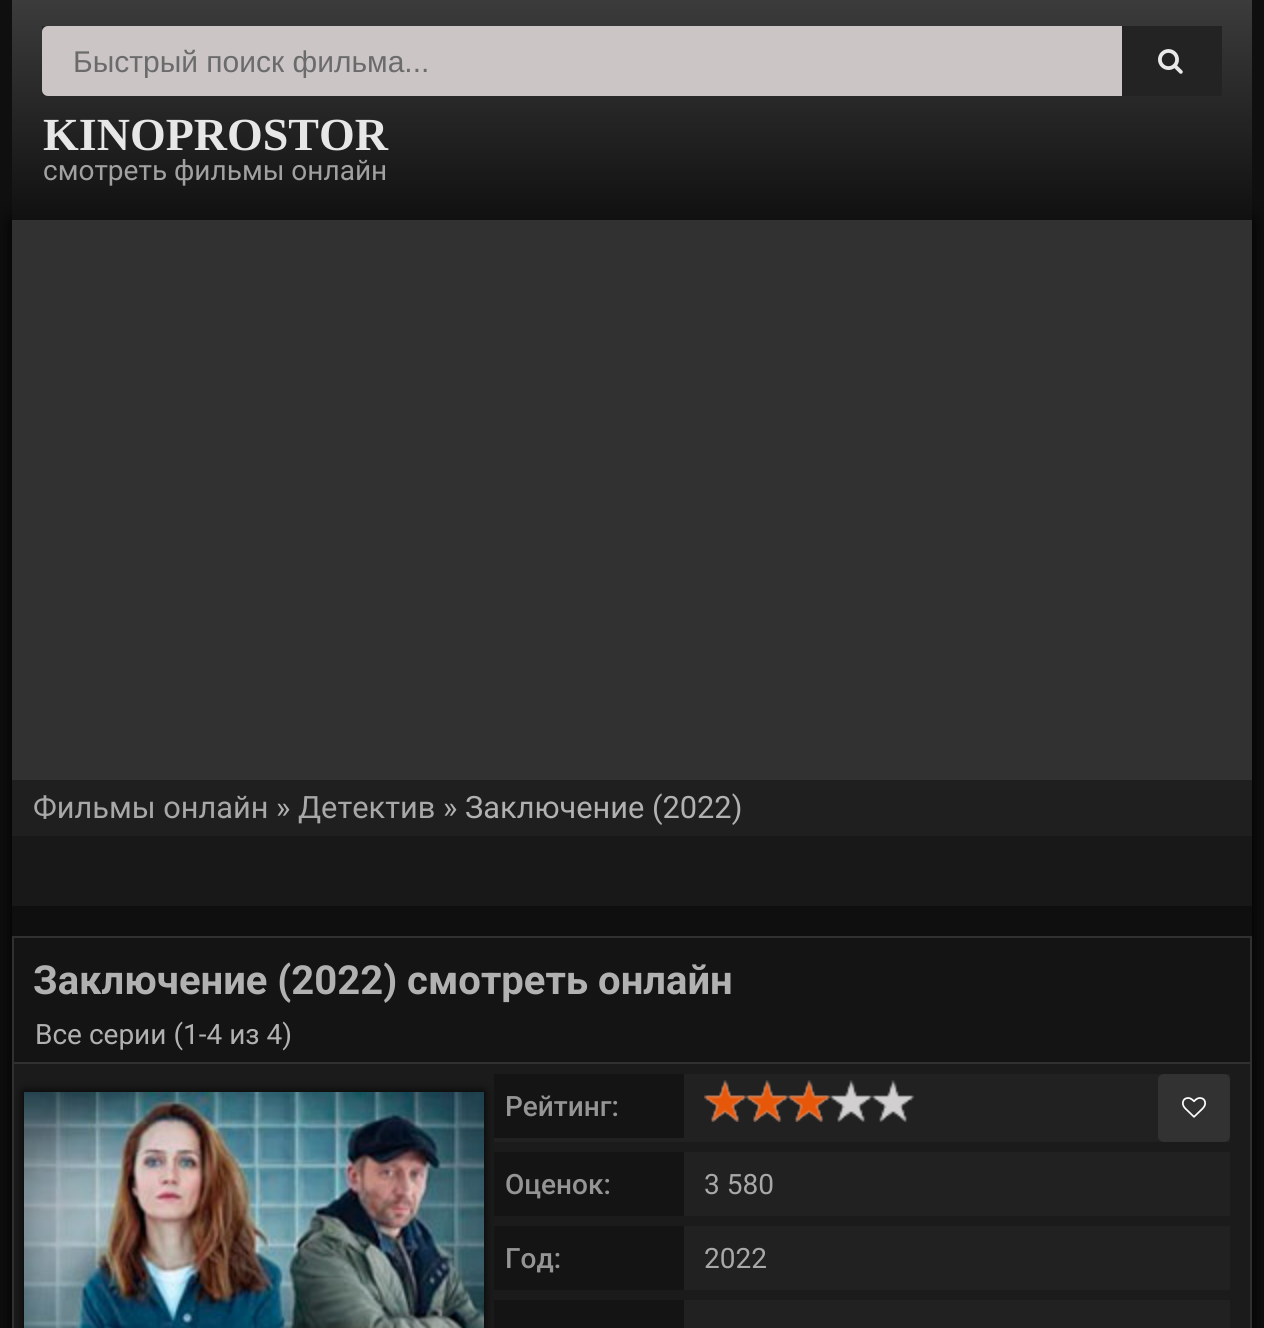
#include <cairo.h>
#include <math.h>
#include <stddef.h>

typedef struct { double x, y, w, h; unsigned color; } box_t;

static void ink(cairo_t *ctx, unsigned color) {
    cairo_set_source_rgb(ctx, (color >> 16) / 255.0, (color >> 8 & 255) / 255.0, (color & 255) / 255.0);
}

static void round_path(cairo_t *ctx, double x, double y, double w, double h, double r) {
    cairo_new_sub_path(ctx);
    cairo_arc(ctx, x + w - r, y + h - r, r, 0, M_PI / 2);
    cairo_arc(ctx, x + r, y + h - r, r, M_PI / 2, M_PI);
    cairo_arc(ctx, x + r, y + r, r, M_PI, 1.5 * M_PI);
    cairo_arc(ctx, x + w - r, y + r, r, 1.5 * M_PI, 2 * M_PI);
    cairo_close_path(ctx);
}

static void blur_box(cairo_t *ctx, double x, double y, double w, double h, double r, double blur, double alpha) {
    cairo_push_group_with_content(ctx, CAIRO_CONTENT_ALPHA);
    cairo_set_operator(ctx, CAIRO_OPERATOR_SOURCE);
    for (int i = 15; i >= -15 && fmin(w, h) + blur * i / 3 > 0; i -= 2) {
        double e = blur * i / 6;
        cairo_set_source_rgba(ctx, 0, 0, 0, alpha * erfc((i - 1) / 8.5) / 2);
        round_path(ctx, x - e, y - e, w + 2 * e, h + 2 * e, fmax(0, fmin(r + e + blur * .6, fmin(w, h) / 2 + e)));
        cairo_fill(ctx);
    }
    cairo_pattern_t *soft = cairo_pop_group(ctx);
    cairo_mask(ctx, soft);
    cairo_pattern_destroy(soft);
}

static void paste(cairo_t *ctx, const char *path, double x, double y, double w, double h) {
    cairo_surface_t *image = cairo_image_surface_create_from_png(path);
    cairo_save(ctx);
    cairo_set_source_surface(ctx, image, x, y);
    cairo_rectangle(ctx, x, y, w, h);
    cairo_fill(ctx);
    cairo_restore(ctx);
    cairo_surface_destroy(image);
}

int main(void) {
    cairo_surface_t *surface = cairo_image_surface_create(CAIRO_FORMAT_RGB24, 1264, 1328);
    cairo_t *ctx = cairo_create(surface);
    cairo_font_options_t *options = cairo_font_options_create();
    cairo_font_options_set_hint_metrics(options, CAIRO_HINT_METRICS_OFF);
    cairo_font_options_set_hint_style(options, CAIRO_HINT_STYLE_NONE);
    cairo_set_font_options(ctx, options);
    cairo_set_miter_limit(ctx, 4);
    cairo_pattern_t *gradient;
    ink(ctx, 0x100F0F);
    cairo_paint(ctx);
    ink(ctx, 0x000000);
    blur_box(ctx, 12, 220, 1240, 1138, 0, 10, 1);
    gradient = cairo_pattern_create_linear(632, 220, 632, 0);
    cairo_pattern_add_color_stop_rgba(gradient, 0, 0.067, 0.067, 0.067, 0.9);
    cairo_pattern_add_color_stop_rgba(gradient, 1, 0.255, 0.255, 0.255, 0.9);
    cairo_set_source(ctx, gradient);
    cairo_pattern_destroy(gradient);
    cairo_rectangle(ctx, 12, 0, 1240, 220);
    cairo_fill(ctx);
    ink(ctx, 0x272626);
    cairo_rectangle(ctx, 42, 26, 6, 70);
    cairo_fill(ctx);
    ink(ctx, 0xCBC5C5);
    round_path(ctx, 42, 26, 1180, 70, 6);
    cairo_fill(ctx);
    cairo_save(ctx);
    cairo_rectangle(ctx, 72, 44, 1130, 34);
    cairo_clip(ctx);
    cairo_select_font_face(ctx, "Liberation Sans", CAIRO_FONT_SLANT_NORMAL, CAIRO_FONT_WEIGHT_NORMAL);
    cairo_set_font_size(ctx, 30);
    ink(ctx, 0x6B6B6B);
    cairo_move_to(ctx, 73, 72);
    cairo_show_text(ctx, "Быстрый поиск фильма...");
    cairo_restore(ctx);
    ink(ctx, 0x232323);
    cairo_rectangle(ctx, 1122, 26, 100, 70);
    cairo_fill(ctx);
    paste(ctx, "media/1.png", 1158, 49, 25, 25);
    cairo_select_font_face(ctx, "Liberation Serif", CAIRO_FONT_SLANT_NORMAL, CAIRO_FONT_WEIGHT_BOLD);
    cairo_set_font_size(ctx, 46);
    ink(ctx, 0xE7E7E7);
    cairo_move_to(ctx, 43, 150);
    cairo_show_text(ctx, "KINOPROSTOR");
    cairo_select_font_face(ctx, "Roboto", CAIRO_FONT_SLANT_NORMAL, CAIRO_FONT_WEIGHT_NORMAL);
    cairo_set_font_size(ctx, 28);
    ink(ctx, 0xA1A1A1);
    cairo_move_to(ctx, 43, 180);
    cairo_show_text(ctx, "смотреть фильмы онлайн");
    ink(ctx, 0x1F1F1F);
    cairo_rectangle(ctx, 12, 780, 1240, 56);
    cairo_fill(ctx);
    ink(ctx, 0x313131);
    cairo_rectangle(ctx, 12, 220, 1240, 560);
    cairo_fill(ctx);
    cairo_set_font_size(ctx, 30.75);
    ink(ctx, 0xA8A8A8);
    cairo_move_to(ctx, 33, 818);
    cairo_show_text(ctx, "Фильмы онлайн");
    ink(ctx, 0xB1B1B1);
    cairo_move_to(ctx, 276, 818);
    cairo_show_text(ctx, "»");
    ink(ctx, 0xA8A8A8);
    cairo_move_to(ctx, 298, 818);
    cairo_show_text(ctx, "Детектив");
    ink(ctx, 0xB1B1B1);
    cairo_move_to(ctx, 443, 818);
    cairo_show_text(ctx, "» Заключение (2022)");
    {
        static const box_t items[] = {
            {12, 836, 1240, 70, 0x181818},
            {12, 906, 1240, 30, 0x100F0F},
            {14, 938, 1236, 124, 0x141414},
            {12, 936, 1240, 2, 0x313131},
            {1250, 936, 2, 126, 0x313131},
            {12, 936, 2, 126, 0x313131},
        };
        for (size_t i = 0; i < sizeof items / sizeof *items; i++) {
            ink(ctx, items[i].color);
            cairo_rectangle(ctx, items[i].x, items[i].y, items[i].w, items[i].h);
            cairo_fill(ctx);
        }
    }
    cairo_select_font_face(ctx, "Roboto", CAIRO_FONT_SLANT_NORMAL, CAIRO_FONT_WEIGHT_BOLD);
    cairo_set_font_size(ctx, 40);
    ink(ctx, 0xB1B1B1);
    cairo_move_to(ctx, 33, 994);
    cairo_show_text(ctx, "Заключение (2022) смотреть онлайн");
    cairo_select_font_face(ctx, "Roboto", CAIRO_FONT_SLANT_NORMAL, CAIRO_FONT_WEIGHT_NORMAL);
    cairo_set_font_size(ctx, 28);
    cairo_move_to(ctx, 35, 1044);
    cairo_show_text(ctx, "Все серии (1-4 из 4)");
    {
        static const box_t items[] = {
            {14, 1064, 1236, 264, 0x1B1B1B},
            {12, 1062, 1240, 2, 0x313131},
            {1250, 1062, 2, 266, 0x313131},
            {12, 1062, 2, 266, 0x313131},
            {494, 1074, 736, 68, 0x212121},
            {494, 1074, 190, 64, 0x141414},
            {494, 1152, 190, 64, 0x141414},
            {494, 1226, 190, 64, 0x141414},
            {494, 1300, 190, 28, 0x141414},
        };
        for (size_t i = 0; i < sizeof items / sizeof *items; i++) {
            ink(ctx, items[i].color);
            cairo_rectangle(ctx, items[i].x, items[i].y, items[i].w, items[i].h);
            cairo_fill(ctx);
        }
    }
    ink(ctx, 0x000000);
    blur_box(ctx, 24, 1092, 460, 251, 0, 5, 1);
    paste(ctx, "media/2.png", 24, 1092, 460, 236);
    cairo_select_font_face(ctx, "Roboto Medium", CAIRO_FONT_SLANT_NORMAL, CAIRO_FONT_WEIGHT_NORMAL);
    ink(ctx, 0x959595);
    cairo_move_to(ctx, 505, 1116);
    cairo_show_text(ctx, "Рейтинг:");
    paste(ctx, "media/3.png", 704, 1080, 210, 42);
    paste(ctx, "media/4.png", 704, 1080, 126, 42);
    ink(ctx, 0x323232);
    round_path(ctx, 1158, 1074, 72, 68, 6);
    cairo_fill(ctx);
    paste(ctx, "media/5.png", 1182, 1097, 24, 21);
    ink(ctx, 0x212121);
    cairo_rectangle(ctx, 684, 1152, 546, 64);
    cairo_fill(ctx);
    ink(ctx, 0x959595);
    cairo_move_to(ctx, 505, 1194);
    cairo_show_text(ctx, "Оценок:");
    cairo_select_font_face(ctx, "Roboto", CAIRO_FONT_SLANT_NORMAL, CAIRO_FONT_WEIGHT_NORMAL);
    ink(ctx, 0xA8A8A8);
    cairo_move_to(ctx, 704, 1194);
    cairo_show_text(ctx, "3 580");
    ink(ctx, 0x212121);
    cairo_rectangle(ctx, 684, 1226, 546, 64);
    cairo_fill(ctx);
    cairo_select_font_face(ctx, "Roboto Medium", CAIRO_FONT_SLANT_NORMAL, CAIRO_FONT_WEIGHT_NORMAL);
    ink(ctx, 0x959595);
    cairo_move_to(ctx, 505, 1268);
    cairo_show_text(ctx, "Год:");
    cairo_select_font_face(ctx, "Roboto", CAIRO_FONT_SLANT_NORMAL, CAIRO_FONT_WEIGHT_NORMAL);
    ink(ctx, 0xA8A8A8);
    cairo_move_to(ctx, 704, 1268);
    cairo_show_text(ctx, "2022");
    ink(ctx, 0x212121);
    cairo_rectangle(ctx, 684, 1300, 546, 28);
    cairo_fill(ctx);
    cairo_surface_write_to_png(surface, "image.png");
    cairo_font_options_destroy(options);
    cairo_destroy(ctx);
    cairo_surface_destroy(surface);
    return 0;
}
